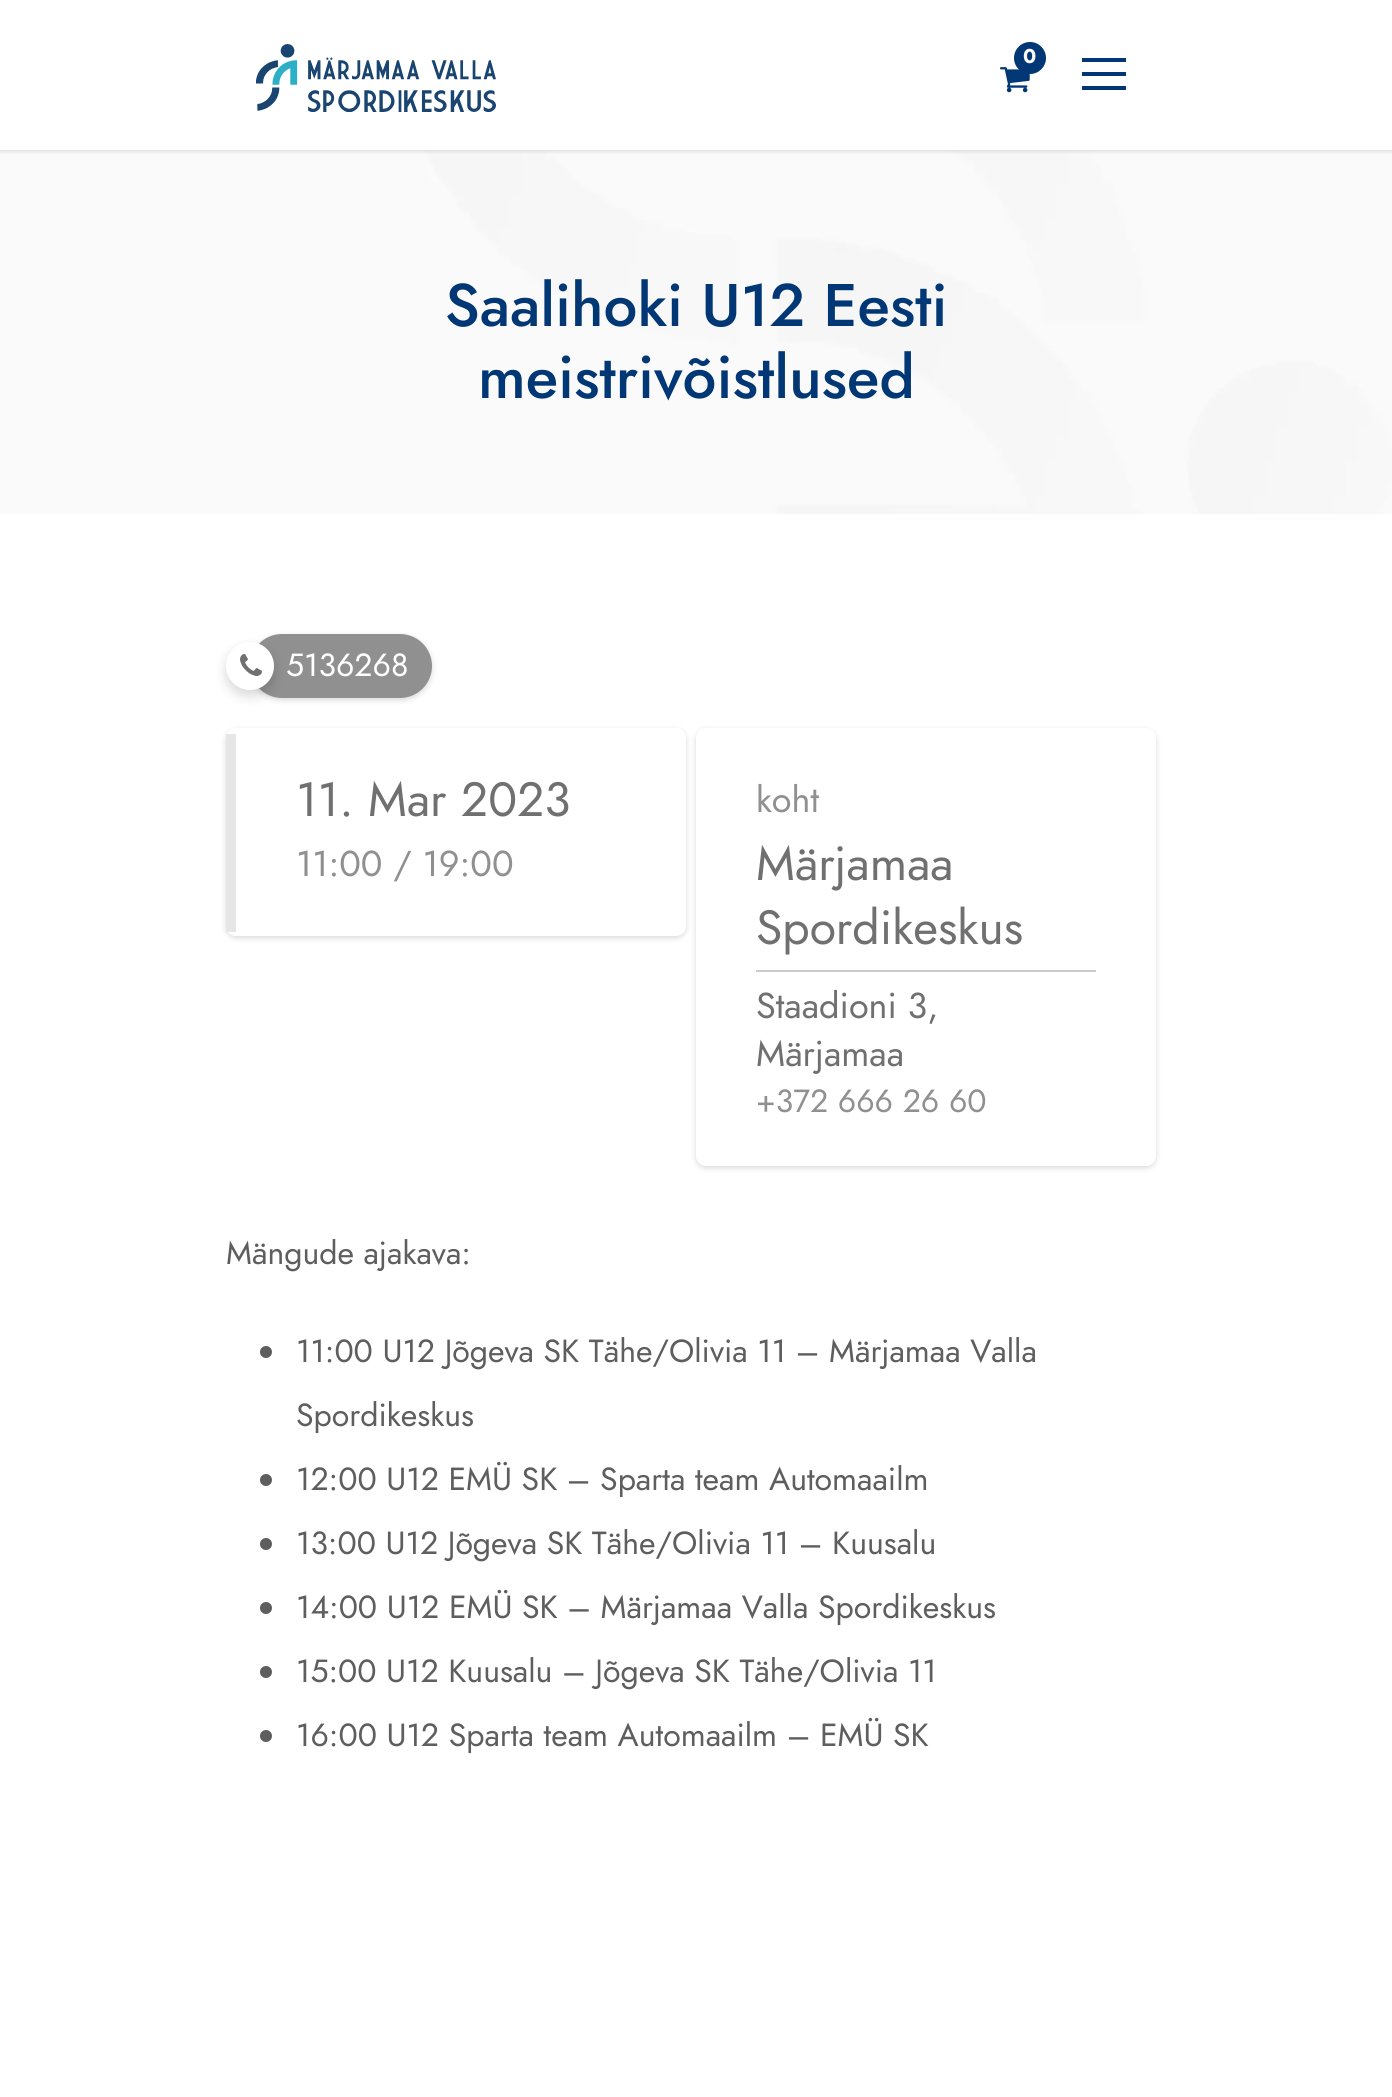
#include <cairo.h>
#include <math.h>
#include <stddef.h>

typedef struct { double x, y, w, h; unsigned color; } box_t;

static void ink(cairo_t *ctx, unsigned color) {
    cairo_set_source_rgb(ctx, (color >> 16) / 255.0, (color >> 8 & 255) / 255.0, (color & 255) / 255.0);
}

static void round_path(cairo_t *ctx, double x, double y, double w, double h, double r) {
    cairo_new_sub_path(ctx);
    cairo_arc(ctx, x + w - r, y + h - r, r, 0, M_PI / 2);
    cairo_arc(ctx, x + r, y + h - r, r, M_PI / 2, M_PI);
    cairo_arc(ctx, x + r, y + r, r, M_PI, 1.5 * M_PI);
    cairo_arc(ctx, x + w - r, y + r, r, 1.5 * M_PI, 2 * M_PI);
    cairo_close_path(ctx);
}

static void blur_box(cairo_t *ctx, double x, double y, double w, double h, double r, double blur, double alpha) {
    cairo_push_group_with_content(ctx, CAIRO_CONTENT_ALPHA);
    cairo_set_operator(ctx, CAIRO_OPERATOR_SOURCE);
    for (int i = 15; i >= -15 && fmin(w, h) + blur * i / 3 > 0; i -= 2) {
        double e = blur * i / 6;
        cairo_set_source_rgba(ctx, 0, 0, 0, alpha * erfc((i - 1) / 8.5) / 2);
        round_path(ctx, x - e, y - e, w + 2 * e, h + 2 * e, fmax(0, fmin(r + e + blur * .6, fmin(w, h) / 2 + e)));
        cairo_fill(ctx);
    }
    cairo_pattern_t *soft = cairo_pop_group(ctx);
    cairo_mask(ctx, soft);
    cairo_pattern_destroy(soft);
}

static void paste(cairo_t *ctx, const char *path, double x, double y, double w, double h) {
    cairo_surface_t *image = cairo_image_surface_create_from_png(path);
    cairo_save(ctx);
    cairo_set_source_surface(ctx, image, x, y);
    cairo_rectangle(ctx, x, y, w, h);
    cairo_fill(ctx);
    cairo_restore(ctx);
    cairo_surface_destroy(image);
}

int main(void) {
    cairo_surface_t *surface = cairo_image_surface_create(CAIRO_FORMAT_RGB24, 1392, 2097);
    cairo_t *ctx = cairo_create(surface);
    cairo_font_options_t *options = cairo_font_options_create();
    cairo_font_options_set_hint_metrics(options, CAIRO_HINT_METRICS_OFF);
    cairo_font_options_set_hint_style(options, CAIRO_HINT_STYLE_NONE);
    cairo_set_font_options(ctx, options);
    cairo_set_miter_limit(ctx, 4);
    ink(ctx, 0xFFFFFF);
    cairo_paint(ctx);
    paste(ctx, "media/3.png", 0, 150, 1392, 364);
    cairo_save(ctx);
    cairo_rectangle(ctx, 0, 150, 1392, 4);
    cairo_clip(ctx);
    ink(ctx, 0x000000);
    blur_box(ctx, 0, 2, 1392, 150, 0, 2, 0.1);
    cairo_restore(ctx);
    paste(ctx, "media/1.png", 256, 44, 240, 68);
    paste(ctx, "media/2.png", 1000, 67, 30, 26);
    ink(ctx, 0x003774);
    cairo_arc(ctx, 1030, 58, 16, 0, 2 * M_PI);
    cairo_fill(ctx);
    cairo_select_font_face(ctx, "Jost", CAIRO_FONT_SLANT_NORMAL, CAIRO_FONT_WEIGHT_BOLD);
    cairo_set_font_size(ctx, 20);
    ink(ctx, 0xFFFFFF);
    cairo_move_to(ctx, 1023, 63);
    cairo_show_text(ctx, "0");
    {
        static const box_t items[] = {
            {1082, 58, 44, 4, 0x003774},
            {1082, 72, 44, 4, 0x003774},
            {1082, 86, 44, 4, 0x003774},
        };
        for (size_t i = 0; i < sizeof items / sizeof *items; i++) {
            ink(ctx, items[i].color);
            cairo_rectangle(ctx, items[i].x, items[i].y, items[i].w, items[i].h);
            cairo_fill(ctx);
        }
    }
    cairo_select_font_face(ctx, "Jost Medium", CAIRO_FONT_SLANT_NORMAL, CAIRO_FONT_WEIGHT_NORMAL);
    cairo_set_font_size(ctx, 60);
    cairo_move_to(ctx, 445, 326);
    cairo_show_text(ctx, "Saalihoki U12 Eesti");
    cairo_move_to(ctx, 478, 398);
    cairo_show_text(ctx, "meistrivõistlused");
    ink(ctx, 0x000000);
    blur_box(ctx, 250, 636, 182, 64, 32, 3, 0.15);
    ink(ctx, 0x909090);
    round_path(ctx, 250, 634, 182, 64, 32);
    cairo_fill(ctx);
    ink(ctx, 0x000000);
    blur_box(ctx, 226, 648, 48, 48, 24, 6, 0.15);
    ink(ctx, 0xFFFFFF);
    cairo_arc(ctx, 250, 666, 24, 0, 2 * M_PI);
    cairo_fill(ctx);
    paste(ctx, "media/4.png", 240, 654, 22, 22);
    cairo_select_font_face(ctx, "Jost", CAIRO_FONT_SLANT_NORMAL, CAIRO_FONT_WEIGHT_NORMAL);
    cairo_set_font_size(ctx, 32);
    cairo_move_to(ctx, 286, 676);
    cairo_show_text(ctx, "5136268");
    ink(ctx, 0x000000);
    blur_box(ctx, 226, 730, 460, 208, 10, 3, 0.15);
    ink(ctx, 0xFFFFFF);
    round_path(ctx, 226, 728, 460, 208, 10);
    cairo_fill(ctx);
    ink(ctx, 0xE6E6E6);
    cairo_rectangle(ctx, 226, 734, 10, 198);
    cairo_fill(ctx);
    cairo_set_font_size(ctx, 48);
    ink(ctx, 0x707070);
    cairo_move_to(ctx, 296, 816);
    cairo_show_text(ctx, "11. Mar 2023");
    cairo_set_font_size(ctx, 36);
    ink(ctx, 0x909090);
    cairo_move_to(ctx, 296, 876);
    cairo_show_text(ctx, "11:00 / 19:00");
    ink(ctx, 0x000000);
    blur_box(ctx, 696, 730, 460, 438, 10, 3, 0.15);
    ink(ctx, 0xFFFFFF);
    round_path(ctx, 696, 728, 460, 438, 10);
    cairo_fill(ctx);
    ink(ctx, 0x909090);
    cairo_move_to(ctx, 756, 812);
    cairo_show_text(ctx, "koht");
    cairo_set_font_size(ctx, 48);
    ink(ctx, 0x707070);
    cairo_move_to(ctx, 756, 880);
    cairo_show_text(ctx, "Märjamaa");
    cairo_move_to(ctx, 756, 944);
    cairo_show_text(ctx, "Spordikeskus");
    ink(ctx, 0xCCCCCC);
    cairo_rectangle(ctx, 756, 970, 340, 2);
    cairo_fill(ctx);
    cairo_set_font_size(ctx, 36);
    ink(ctx, 0x707070);
    cairo_move_to(ctx, 756, 1018);
    cairo_show_text(ctx, "Staadioni 3,");
    cairo_move_to(ctx, 756, 1066);
    cairo_show_text(ctx, "Märjamaa");
    cairo_set_font_size(ctx, 32);
    ink(ctx, 0x909090);
    cairo_move_to(ctx, 756, 1112);
    cairo_show_text(ctx, "+372 666 26 60");
    ink(ctx, 0x5E5E5E);
    cairo_move_to(ctx, 226, 1264);
    cairo_show_text(ctx, "Mängude ajakava:");
    cairo_new_path(ctx);
    cairo_arc(ctx, 266, 1352, 6, 0, 2 * M_PI);
    cairo_fill(ctx);
    cairo_move_to(ctx, 296, 1362);
    cairo_show_text(ctx, "11:00 U12 Jõgeva SK Tähe/Olivia 11 – Märjamaa Valla");
    cairo_move_to(ctx, 296, 1426);
    cairo_show_text(ctx, "Spordikeskus");
    cairo_new_path(ctx);
    cairo_arc(ctx, 266, 1480, 6, 0, 2 * M_PI);
    cairo_fill(ctx);
    cairo_move_to(ctx, 296, 1490);
    cairo_show_text(ctx, "12:00 U12 EMÜ SK – Sparta team Automaailm");
    cairo_new_path(ctx);
    cairo_arc(ctx, 266, 1544, 6, 0, 2 * M_PI);
    cairo_fill(ctx);
    cairo_move_to(ctx, 296, 1554);
    cairo_show_text(ctx, "13:00 U12 Jõgeva SK Tähe/Olivia 11 – Kuusalu");
    cairo_new_path(ctx);
    cairo_arc(ctx, 266, 1608, 6, 0, 2 * M_PI);
    cairo_fill(ctx);
    cairo_move_to(ctx, 296, 1618);
    cairo_show_text(ctx, "14:00 U12 EMÜ SK – Märjamaa Valla Spordikeskus");
    cairo_new_path(ctx);
    cairo_arc(ctx, 266, 1672, 6, 0, 2 * M_PI);
    cairo_fill(ctx);
    cairo_move_to(ctx, 296, 1682);
    cairo_show_text(ctx, "15:00 U12 Kuusalu – Jõgeva SK Tähe/Olivia 11");
    cairo_new_path(ctx);
    cairo_arc(ctx, 266, 1736, 6, 0, 2 * M_PI);
    cairo_fill(ctx);
    cairo_move_to(ctx, 296, 1746);
    cairo_show_text(ctx, "16:00 U12 Sparta team Automaailm – EMÜ SK");
    cairo_surface_write_to_png(surface, "image.png");
    cairo_font_options_destroy(options);
    cairo_destroy(ctx);
    cairo_surface_destroy(surface);
    return 0;
}
